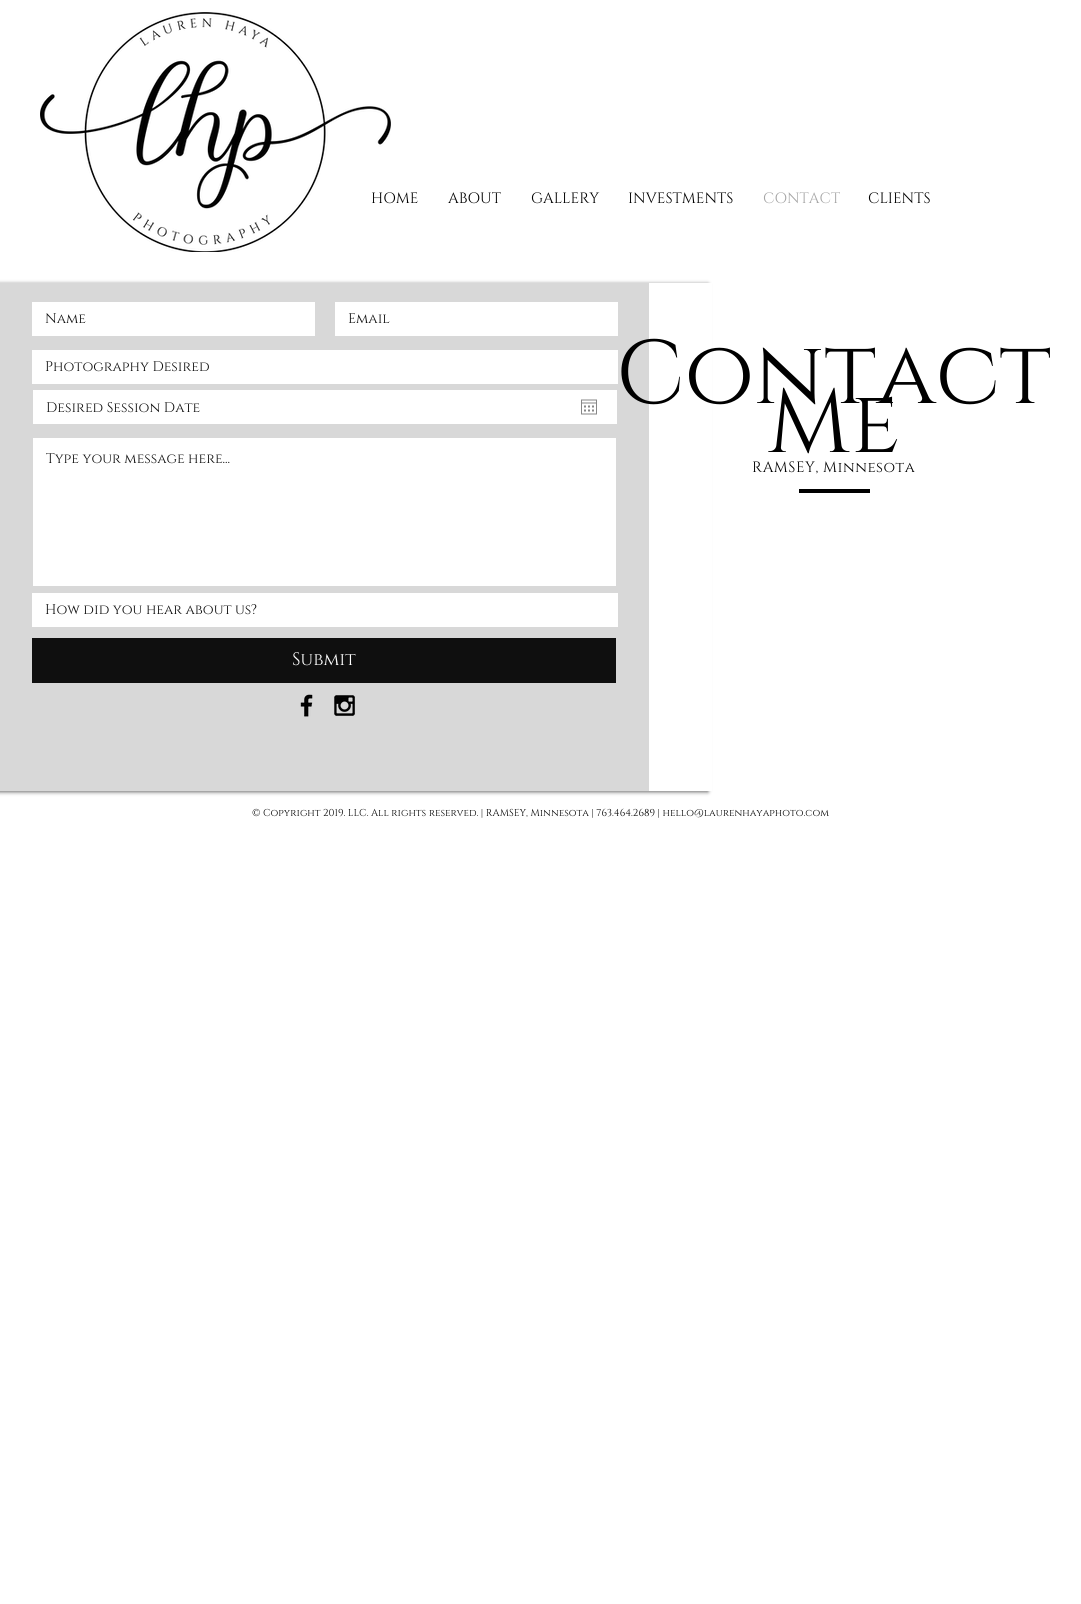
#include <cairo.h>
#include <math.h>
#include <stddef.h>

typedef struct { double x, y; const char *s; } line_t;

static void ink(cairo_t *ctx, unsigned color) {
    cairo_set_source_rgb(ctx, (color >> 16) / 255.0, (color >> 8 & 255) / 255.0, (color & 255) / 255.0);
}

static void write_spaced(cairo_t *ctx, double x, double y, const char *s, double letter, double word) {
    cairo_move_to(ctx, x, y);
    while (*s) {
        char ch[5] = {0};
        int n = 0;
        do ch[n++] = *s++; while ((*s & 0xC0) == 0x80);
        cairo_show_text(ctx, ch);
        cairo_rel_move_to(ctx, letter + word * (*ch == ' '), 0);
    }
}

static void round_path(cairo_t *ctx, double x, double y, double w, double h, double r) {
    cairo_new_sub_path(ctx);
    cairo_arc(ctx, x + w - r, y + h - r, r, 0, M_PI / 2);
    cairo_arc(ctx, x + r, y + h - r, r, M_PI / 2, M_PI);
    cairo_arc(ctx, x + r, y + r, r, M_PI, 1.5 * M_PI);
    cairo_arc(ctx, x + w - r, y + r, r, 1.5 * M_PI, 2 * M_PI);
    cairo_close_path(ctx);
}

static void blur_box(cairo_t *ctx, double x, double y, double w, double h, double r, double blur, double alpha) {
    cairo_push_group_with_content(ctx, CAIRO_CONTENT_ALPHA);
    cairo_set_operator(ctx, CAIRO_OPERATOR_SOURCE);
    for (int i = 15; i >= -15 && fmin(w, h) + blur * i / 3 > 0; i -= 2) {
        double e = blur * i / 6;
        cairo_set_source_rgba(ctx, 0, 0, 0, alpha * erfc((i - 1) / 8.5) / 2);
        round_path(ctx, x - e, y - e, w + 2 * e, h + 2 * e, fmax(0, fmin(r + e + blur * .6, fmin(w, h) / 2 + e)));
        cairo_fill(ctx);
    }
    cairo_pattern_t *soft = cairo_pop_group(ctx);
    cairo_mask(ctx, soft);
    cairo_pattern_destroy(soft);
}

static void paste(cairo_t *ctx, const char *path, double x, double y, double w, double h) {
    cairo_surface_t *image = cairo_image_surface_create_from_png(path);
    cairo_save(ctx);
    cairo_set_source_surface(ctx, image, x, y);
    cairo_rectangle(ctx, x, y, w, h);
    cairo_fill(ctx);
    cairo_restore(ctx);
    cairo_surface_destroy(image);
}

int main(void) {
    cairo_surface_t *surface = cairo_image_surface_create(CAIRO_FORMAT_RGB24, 1081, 1604);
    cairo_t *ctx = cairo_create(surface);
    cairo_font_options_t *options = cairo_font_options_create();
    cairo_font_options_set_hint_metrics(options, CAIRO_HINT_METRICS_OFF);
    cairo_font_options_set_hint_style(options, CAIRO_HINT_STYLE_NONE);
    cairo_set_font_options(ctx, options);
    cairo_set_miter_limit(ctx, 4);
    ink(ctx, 0xFFFFFF);
    cairo_paint(ctx);
    cairo_select_font_face(ctx, "Cinzel", CAIRO_FONT_SLANT_NORMAL, CAIRO_FONT_WEIGHT_NORMAL);
    cairo_set_font_size(ctx, 15);
    ink(ctx, 0x000000);
    cairo_move_to(ctx, 371, 203);
    cairo_show_text(ctx, "HOME");
    paste(ctx, "media/1.png", 40, 12, 351, 240);
    {
        static const line_t items[] = {
            {448, 203, "ABOUT"},
            {531, 203, "GALLERY"},
            {628, 203, "INVESTMENTS"},
        };
        for (size_t i = 0; i < sizeof items / sizeof *items; i++) {
            cairo_move_to(ctx, items[i].x, items[i].y);
            cairo_show_text(ctx, items[i].s);
        }
    }
    ink(ctx, 0xA5A5A5);
    cairo_move_to(ctx, 763, 203);
    cairo_show_text(ctx, "CONTACT");
    ink(ctx, 0x000000);
    cairo_move_to(ctx, 868, 203);
    cairo_show_text(ctx, "CLIENTS");
    ink(ctx, 0xD8D8D8);
    cairo_rectangle(ctx, 0, 283, 649, 508);
    cairo_fill(ctx);
    cairo_save(ctx);
    cairo_set_fill_rule(ctx, CAIRO_FILL_RULE_EVEN_ODD);
    cairo_new_path(ctx);
    cairo_move_to(ctx, 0, 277);
    cairo_line_to(ctx, 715, 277);
    cairo_line_to(ctx, 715, 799);
    cairo_line_to(ctx, 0, 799);
    cairo_close_path(ctx);
    cairo_move_to(ctx, -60, 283);
    cairo_line_to(ctx, 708, 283);
    cairo_line_to(ctx, 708, 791);
    cairo_line_to(ctx, -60, 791);
    cairo_close_path(ctx);
    cairo_clip(ctx);
    ink(ctx, 0x000000);
    blur_box(ctx, -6, 284, 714, 508, 0, 2, 0.6);
    cairo_restore(ctx);
    ink(ctx, 0xFFFFFF);
    cairo_rectangle(ctx, 32, 302, 283, 34);
    cairo_fill(ctx);
    cairo_set_font_size(ctx, 14);
    ink(ctx, 0x0F0F0F);
    cairo_move_to(ctx, 45, 323);
    cairo_show_text(ctx, "Name");
    ink(ctx, 0xFFFFFF);
    cairo_rectangle(ctx, 335, 302, 283, 34);
    cairo_fill(ctx);
    ink(ctx, 0x0F0F0F);
    cairo_move_to(ctx, 348, 323);
    cairo_show_text(ctx, "Email");
    ink(ctx, 0xFFFFFF);
    cairo_rectangle(ctx, 32, 350, 586, 34);
    cairo_fill(ctx);
    ink(ctx, 0x0F0F0F);
    cairo_move_to(ctx, 45, 371);
    cairo_show_text(ctx, "Photography Desired");
    ink(ctx, 0xFFFFFF);
    cairo_rectangle(ctx, 33, 390, 584, 34);
    cairo_fill(ctx);
    ink(ctx, 0x0F0F0F);
    cairo_move_to(ctx, 46, 412);
    cairo_show_text(ctx, "Desired Session Date");
    paste(ctx, "media/2.png", 581, 399, 16, 16);
    ink(ctx, 0xFFFFFF);
    cairo_rectangle(ctx, 33, 438, 583, 148);
    cairo_fill(ctx);
    ink(ctx, 0x0F0F0F);
    cairo_move_to(ctx, 46, 463);
    cairo_show_text(ctx, "Type your message here...");
    ink(ctx, 0xFFFFFF);
    cairo_rectangle(ctx, 32, 593, 586, 34);
    cairo_fill(ctx);
    ink(ctx, 0x0F0F0F);
    cairo_move_to(ctx, 45, 614);
    cairo_show_text(ctx, "How did you hear about us?");
    cairo_rectangle(ctx, 32, 638, 584, 45);
    cairo_fill(ctx);
    cairo_set_font_size(ctx, 18);
    ink(ctx, 0xFFFFFF);
    cairo_move_to(ctx, 292, 665);
    cairo_show_text(ctx, "Submit");
    paste(ctx, "media/3.png", 300, 694, 13, 23);
    paste(ctx, "media/4.png", 334, 695, 21, 21);
    cairo_rectangle(ctx, 708, 283, 4, 508);
    cairo_fill(ctx);
    cairo_set_font_size(ctx, 90);
    ink(ctx, 0x000000);
    cairo_move_to(ctx, 616, 403);
    cairo_show_text(ctx, "Contact");
    cairo_move_to(ctx, 767, 452);
    cairo_show_text(ctx, "Me");
    cairo_set_font_size(ctx, 15);
    write_spaced(ctx, 752, 472, "RAMSEY, Minnesota", 0.5, 0);
    cairo_rectangle(ctx, 799, 489, 71, 4);
    cairo_fill(ctx);
    cairo_set_font_size(ctx, 10);
    cairo_move_to(ctx, 252, 816);
    cairo_show_text(ctx, "© Copyright 2019. LLC. All rights reserved. | RAMSEY, Minnesota | 763.464.2689 | hello@laurenhayaphoto.com");
    cairo_surface_write_to_png(surface, "image.png");
    cairo_font_options_destroy(options);
    cairo_destroy(ctx);
    cairo_surface_destroy(surface);
    return 0;
}
